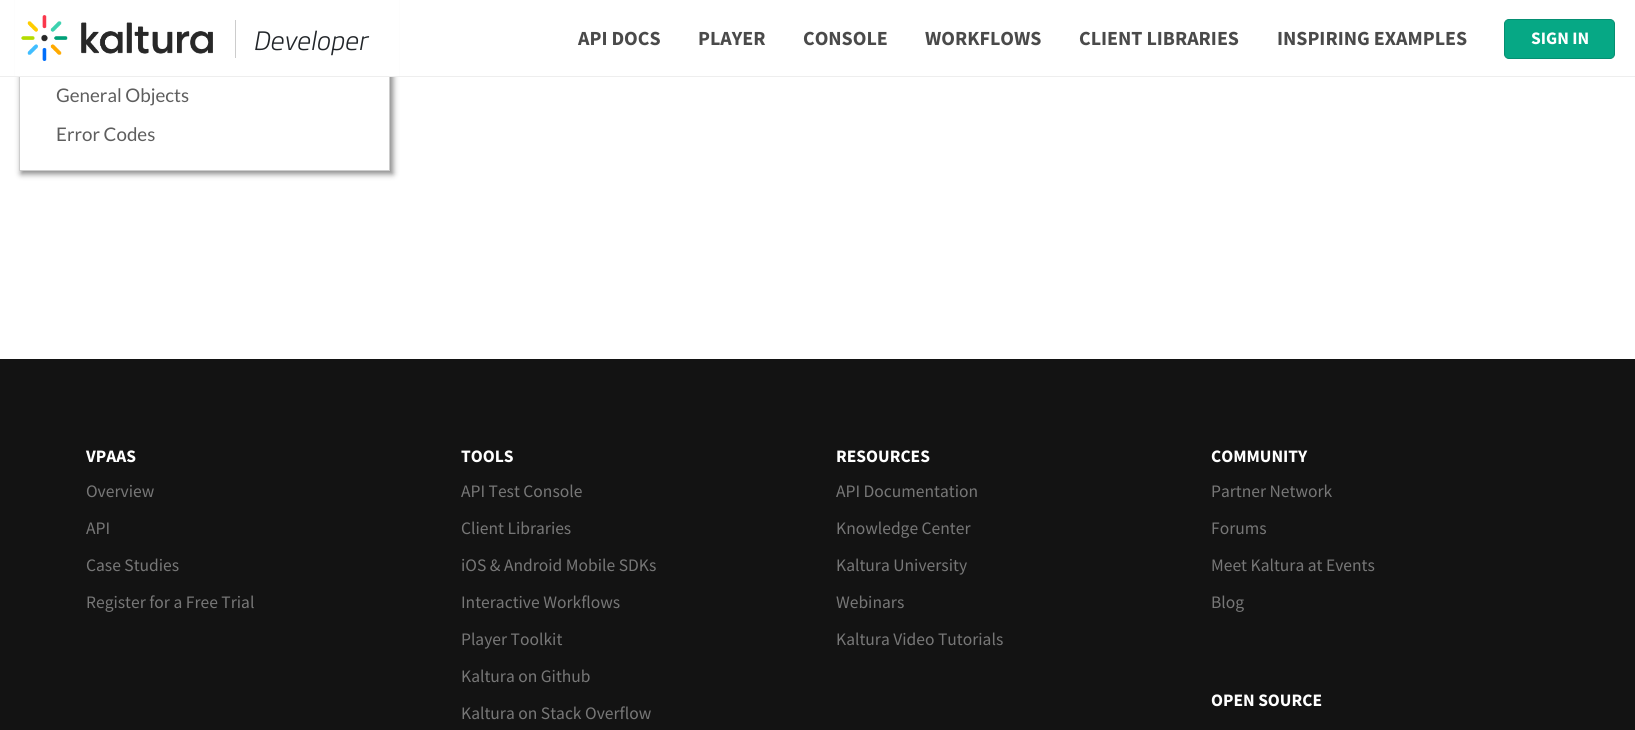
#include <cairo.h>
#include <math.h>
#include <stddef.h>

typedef struct { double x, y; const char *s; } line_t;

static void ink(cairo_t *ctx, unsigned color) {
    cairo_set_source_rgb(ctx, (color >> 16) / 255.0, (color >> 8 & 255) / 255.0, (color & 255) / 255.0);
}

static void round_path(cairo_t *ctx, double x, double y, double w, double h, double r) {
    cairo_new_sub_path(ctx);
    cairo_arc(ctx, x + w - r, y + h - r, r, 0, M_PI / 2);
    cairo_arc(ctx, x + r, y + h - r, r, M_PI / 2, M_PI);
    cairo_arc(ctx, x + r, y + r, r, M_PI, 1.5 * M_PI);
    cairo_arc(ctx, x + w - r, y + r, r, 1.5 * M_PI, 2 * M_PI);
    cairo_close_path(ctx);
}

static void blur_box(cairo_t *ctx, double x, double y, double w, double h, double r, double blur, double alpha) {
    cairo_push_group_with_content(ctx, CAIRO_CONTENT_ALPHA);
    cairo_set_operator(ctx, CAIRO_OPERATOR_SOURCE);
    for (int i = 15; i >= -15 && fmin(w, h) + blur * i / 3 > 0; i -= 2) {
        double e = blur * i / 6;
        cairo_set_source_rgba(ctx, 0, 0, 0, alpha * erfc((i - 1) / 8.5) / 2);
        round_path(ctx, x - e, y - e, w + 2 * e, h + 2 * e, fmax(0, fmin(r + e + blur * .6, fmin(w, h) / 2 + e)));
        cairo_fill(ctx);
    }
    cairo_pattern_t *soft = cairo_pop_group(ctx);
    cairo_mask(ctx, soft);
    cairo_pattern_destroy(soft);
}

static void paste(cairo_t *ctx, const char *path, double x, double y, double w, double h) {
    cairo_surface_t *image = cairo_image_surface_create_from_png(path);
    cairo_save(ctx);
    cairo_set_source_surface(ctx, image, x, y);
    cairo_rectangle(ctx, x, y, w, h);
    cairo_fill(ctx);
    cairo_restore(ctx);
    cairo_surface_destroy(image);
}

int main(void) {
    cairo_surface_t *surface = cairo_image_surface_create(CAIRO_FORMAT_RGB24, 1635, 730);
    cairo_t *ctx = cairo_create(surface);
    cairo_font_options_t *options = cairo_font_options_create();
    cairo_font_options_set_hint_metrics(options, CAIRO_HINT_METRICS_OFF);
    cairo_font_options_set_hint_style(options, CAIRO_HINT_STYLE_NONE);
    cairo_set_font_options(ctx, options);
    cairo_set_miter_limit(ctx, 4);
    ink(ctx, 0xFFFFFF);
    cairo_paint(ctx);
    cairo_save(ctx);
    cairo_set_fill_rule(ctx, CAIRO_FILL_RULE_EVEN_ODD);
    cairo_new_path(ctx);
    cairo_move_to(ctx, 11, 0);
    cairo_line_to(ctx, 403, 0);
    cairo_line_to(ctx, 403, 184);
    cairo_line_to(ctx, 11, 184);
    cairo_close_path(ctx);
    cairo_move_to(ctx, 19, -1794);
    cairo_line_to(ctx, 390, -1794);
    cairo_line_to(ctx, 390, 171);
    cairo_line_to(ctx, 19, 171);
    cairo_close_path(ctx);
    cairo_clip(ctx);
    ink(ctx, 0x888888);
    blur_box(ctx, 21, -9, 372, 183, 0, 3, 1);
    cairo_restore(ctx);
    cairo_rectangle(ctx, 19.5, -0.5, 370, 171);
    ink(ctx, 0xCCCCCC);
    cairo_set_line_width(ctx, 1);
    cairo_stroke(ctx);
    ink(ctx, 0xFFFFFF);
    cairo_rectangle(ctx, 15, 0, 384, 76);
    cairo_fill(ctx);
    ink(ctx, 0xEEEEEE);
    cairo_rectangle(ctx, 0, 76, 1635, 1);
    cairo_fill(ctx);
    paste(ctx, "media/1.png", 21, 15, 192, 46);
    cairo_select_font_face(ctx, "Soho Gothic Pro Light", CAIRO_FONT_SLANT_ITALIC, CAIRO_FONT_WEIGHT_NORMAL);
    cairo_set_font_size(ctx, 25);
    ink(ctx, 0x212529);
    cairo_move_to(ctx, 253, 50);
    cairo_show_text(ctx, "Developer");
    ink(ctx, 0xCCCCCC);
    cairo_rectangle(ctx, 235, 20, 1, 38);
    cairo_fill(ctx);
    cairo_select_font_face(ctx, "Source Sans Pro", CAIRO_FONT_SLANT_NORMAL, CAIRO_FONT_WEIGHT_BOLD);
    cairo_set_font_size(ctx, 20);
    ink(ctx, 0x4A4A4A);
    {
        static const line_t items[] = {
            {578, 45, "API DOCS"},
            {698, 45, "PLAYER"},
            {803, 45, "CONSOLE"},
            {925, 45, "WORKFLOWS"},
            {1079, 45, "CLIENT LIBRARIES"},
            {1277, 45, "INSPIRING EXAMPLES"},
        };
        for (size_t i = 0; i < sizeof items / sizeof *items; i++) {
            cairo_move_to(ctx, items[i].x, items[i].y);
            cairo_show_text(ctx, items[i].s);
        }
    }
    ink(ctx, 0x06A885);
    round_path(ctx, 1504.5, 19.5, 110, 39, 4.5);
    cairo_fill_preserve(ctx);
    ink(ctx, 0x058F72);
    cairo_stroke(ctx);
    cairo_set_font_size(ctx, 17.5);
    ink(ctx, 0xFFFFFF);
    cairo_move_to(ctx, 1531, 44);
    cairo_show_text(ctx, "SIGN IN");
    cairo_select_font_face(ctx, "Lato", CAIRO_FONT_SLANT_NORMAL, CAIRO_FONT_WEIGHT_NORMAL);
    cairo_set_font_size(ctx, 18.75);
    ink(ctx, 0x5E5E5E);
    cairo_move_to(ctx, 56, 102);
    cairo_show_text(ctx, "General Objects");
    cairo_move_to(ctx, 56, 141);
    cairo_show_text(ctx, "Error Codes");
    ink(ctx, 0x131313);
    cairo_rectangle(ctx, 0, 359, 1635, 371);
    cairo_fill(ctx);
    cairo_select_font_face(ctx, "Source Sans Pro", CAIRO_FONT_SLANT_NORMAL, CAIRO_FONT_WEIGHT_BOLD);
    cairo_set_font_size(ctx, 17.5);
    ink(ctx, 0xFFFFFF);
    cairo_move_to(ctx, 86, 462);
    cairo_show_text(ctx, "VPAAS");
    cairo_select_font_face(ctx, "Source Sans Pro", CAIRO_FONT_SLANT_NORMAL, CAIRO_FONT_WEIGHT_NORMAL);
    ink(ctx, 0x777777);
    {
        static const line_t items[] = {
            {86, 497, "Overview"},
            {86, 534, "API"},
            {86, 571, "Case Studies"},
            {86, 608, "Register for a Free Trial"},
        };
        for (size_t i = 0; i < sizeof items / sizeof *items; i++) {
            cairo_move_to(ctx, items[i].x, items[i].y);
            cairo_show_text(ctx, items[i].s);
        }
    }
    cairo_select_font_face(ctx, "Source Sans Pro", CAIRO_FONT_SLANT_NORMAL, CAIRO_FONT_WEIGHT_BOLD);
    ink(ctx, 0xFFFFFF);
    cairo_move_to(ctx, 461, 462);
    cairo_show_text(ctx, "TOOLS");
    cairo_select_font_face(ctx, "Source Sans Pro", CAIRO_FONT_SLANT_NORMAL, CAIRO_FONT_WEIGHT_NORMAL);
    ink(ctx, 0x777777);
    {
        static const line_t items[] = {
            {461, 497, "API Test Console"},
            {461, 534, "Client Libraries"},
            {461, 571, "iOS & Android Mobile SDKs"},
            {461, 608, "Interactive Workflows"},
            {461, 645, "Player Toolkit"},
            {461, 682, "Kaltura on Github"},
            {461, 719, "Kaltura on Stack Overflow"},
        };
        for (size_t i = 0; i < sizeof items / sizeof *items; i++) {
            cairo_move_to(ctx, items[i].x, items[i].y);
            cairo_show_text(ctx, items[i].s);
        }
    }
    cairo_select_font_face(ctx, "Source Sans Pro", CAIRO_FONT_SLANT_NORMAL, CAIRO_FONT_WEIGHT_BOLD);
    ink(ctx, 0xFFFFFF);
    cairo_move_to(ctx, 836, 462);
    cairo_show_text(ctx, "RESOURCES");
    cairo_select_font_face(ctx, "Source Sans Pro", CAIRO_FONT_SLANT_NORMAL, CAIRO_FONT_WEIGHT_NORMAL);
    ink(ctx, 0x777777);
    {
        static const line_t items[] = {
            {836, 497, "API Documentation"},
            {836, 534, "Knowledge Center"},
            {836, 571, "Kaltura University"},
            {836, 608, "Webinars"},
            {836, 645, "Kaltura Video Tutorials"},
        };
        for (size_t i = 0; i < sizeof items / sizeof *items; i++) {
            cairo_move_to(ctx, items[i].x, items[i].y);
            cairo_show_text(ctx, items[i].s);
        }
    }
    cairo_select_font_face(ctx, "Source Sans Pro", CAIRO_FONT_SLANT_NORMAL, CAIRO_FONT_WEIGHT_BOLD);
    ink(ctx, 0xFFFFFF);
    cairo_move_to(ctx, 1211, 462);
    cairo_show_text(ctx, "COMMUNITY");
    cairo_select_font_face(ctx, "Source Sans Pro", CAIRO_FONT_SLANT_NORMAL, CAIRO_FONT_WEIGHT_NORMAL);
    ink(ctx, 0x777777);
    {
        static const line_t items[] = {
            {1211, 497, "Partner Network"},
            {1211, 534, "Forums"},
            {1211, 571, "Meet Kaltura at Events"},
            {1211, 608, "Blog"},
        };
        for (size_t i = 0; i < sizeof items / sizeof *items; i++) {
            cairo_move_to(ctx, items[i].x, items[i].y);
            cairo_show_text(ctx, items[i].s);
        }
    }
    cairo_select_font_face(ctx, "Source Sans Pro", CAIRO_FONT_SLANT_NORMAL, CAIRO_FONT_WEIGHT_BOLD);
    ink(ctx, 0xFFFFFF);
    cairo_move_to(ctx, 1211, 706);
    cairo_show_text(ctx, "OPEN SOURCE");
    cairo_surface_write_to_png(surface, "image.png");
    cairo_font_options_destroy(options);
    cairo_destroy(ctx);
    cairo_surface_destroy(surface);
    return 0;
}
